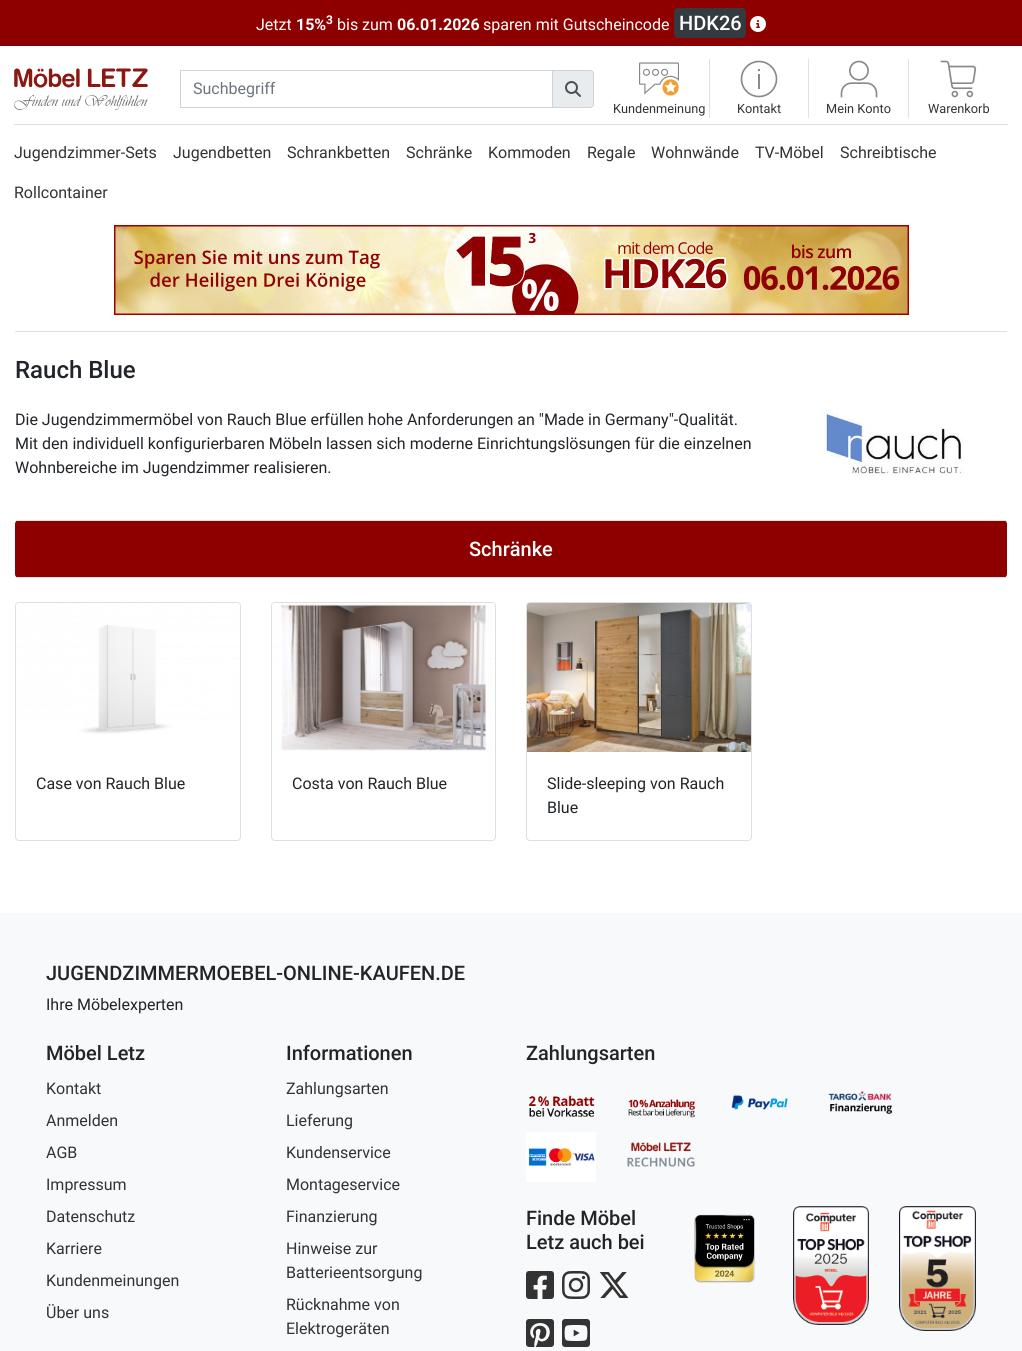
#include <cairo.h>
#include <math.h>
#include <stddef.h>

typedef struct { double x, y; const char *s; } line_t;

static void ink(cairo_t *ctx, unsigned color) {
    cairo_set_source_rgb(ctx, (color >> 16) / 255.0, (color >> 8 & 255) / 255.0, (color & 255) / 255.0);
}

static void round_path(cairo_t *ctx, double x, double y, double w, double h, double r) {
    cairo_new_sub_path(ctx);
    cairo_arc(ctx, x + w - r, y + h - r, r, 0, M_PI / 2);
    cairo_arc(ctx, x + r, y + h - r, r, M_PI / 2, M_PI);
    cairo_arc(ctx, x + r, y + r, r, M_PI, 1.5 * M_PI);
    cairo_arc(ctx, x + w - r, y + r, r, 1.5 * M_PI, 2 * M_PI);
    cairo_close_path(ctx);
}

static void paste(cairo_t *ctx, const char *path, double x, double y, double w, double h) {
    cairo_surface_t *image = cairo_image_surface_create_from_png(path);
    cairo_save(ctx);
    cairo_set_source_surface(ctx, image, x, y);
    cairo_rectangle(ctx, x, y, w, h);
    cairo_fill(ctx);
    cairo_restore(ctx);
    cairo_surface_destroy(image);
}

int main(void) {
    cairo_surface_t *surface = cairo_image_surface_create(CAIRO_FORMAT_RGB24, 1022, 1351);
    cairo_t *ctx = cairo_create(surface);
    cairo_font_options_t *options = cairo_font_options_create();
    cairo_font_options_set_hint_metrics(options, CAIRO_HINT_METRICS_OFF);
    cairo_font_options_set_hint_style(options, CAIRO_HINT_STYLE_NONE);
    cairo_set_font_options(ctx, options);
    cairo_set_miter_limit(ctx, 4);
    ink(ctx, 0xFFFFFF);
    cairo_paint(ctx);
    ink(ctx, 0x8E0000);
    cairo_rectangle(ctx, 0, 0, 1022, 46);
    cairo_fill(ctx);
    cairo_select_font_face(ctx, "Roboto", CAIRO_FONT_SLANT_NORMAL, CAIRO_FONT_WEIGHT_NORMAL);
    cairo_set_font_size(ctx, 16);
    ink(ctx, 0xFFFFFF);
    cairo_move_to(ctx, 256, 30);
    cairo_show_text(ctx, "Jetzt");
    cairo_select_font_face(ctx, "Roboto", CAIRO_FONT_SLANT_NORMAL, CAIRO_FONT_WEIGHT_BOLD);
    cairo_move_to(ctx, 296, 30);
    cairo_show_text(ctx, "15%");
    cairo_set_font_size(ctx, 12);
    cairo_move_to(ctx, 326, 24);
    cairo_show_text(ctx, "3");
    cairo_select_font_face(ctx, "Roboto", CAIRO_FONT_SLANT_NORMAL, CAIRO_FONT_WEIGHT_NORMAL);
    cairo_set_font_size(ctx, 16);
    cairo_move_to(ctx, 337, 30);
    cairo_show_text(ctx, "bis zum");
    cairo_select_font_face(ctx, "Roboto", CAIRO_FONT_SLANT_NORMAL, CAIRO_FONT_WEIGHT_BOLD);
    cairo_move_to(ctx, 397, 30);
    cairo_show_text(ctx, "06.01.2026");
    cairo_select_font_face(ctx, "Roboto", CAIRO_FONT_SLANT_NORMAL, CAIRO_FONT_WEIGHT_NORMAL);
    cairo_move_to(ctx, 483, 30);
    cairo_show_text(ctx, "sparen mit Gutscheincode");
    ink(ctx, 0x343A40);
    round_path(ctx, 674, 8, 72, 30, 4);
    cairo_fill(ctx);
    cairo_select_font_face(ctx, "Roboto Medium", CAIRO_FONT_SLANT_NORMAL, CAIRO_FONT_WEIGHT_NORMAL);
    cairo_set_font_size(ctx, 20);
    ink(ctx, 0xFFFFFF);
    cairo_move_to(ctx, 679, 30);
    cairo_show_text(ctx, "HDK26");
    paste(ctx, "media/1.png", 750, 16, 16, 16);
    paste(ctx, "media/2.png", 14, 68, 134, 43);
    ink(ctx, 0xE9ECEF);
    cairo_new_path(ctx);
    cairo_move_to(ctx, 552.5, 70.5);
    cairo_line_to(ctx, 590, 70.5);
    cairo_curve_to(ctx, 592, 70.5, 593.5, 72, 593.5, 74);
    cairo_line_to(ctx, 593.5, 104);
    cairo_curve_to(ctx, 593.5, 106, 592, 107.5, 590, 107.5);
    cairo_line_to(ctx, 552.5, 107.5);
    cairo_close_path(ctx);
    cairo_fill_preserve(ctx);
    ink(ctx, 0xCED4DA);
    cairo_set_line_width(ctx, 1);
    cairo_stroke(ctx);
    cairo_rectangle(ctx, 180.5, 70.5, 372, 37);
    cairo_stroke(ctx);
    cairo_select_font_face(ctx, "Roboto", CAIRO_FONT_SLANT_NORMAL, CAIRO_FONT_WEIGHT_NORMAL);
    cairo_set_font_size(ctx, 16);
    ink(ctx, 0x6C757D);
    cairo_move_to(ctx, 193, 94);
    cairo_show_text(ctx, "Suchbegriff");
    paste(ctx, "media/3.png", 565, 81, 16, 16);
    paste(ctx, "media/4.png", 639, 62, 40, 34);
    cairo_set_font_size(ctx, 12.75);
    ink(ctx, 0x333333);
    cairo_move_to(ctx, 613, 113);
    cairo_show_text(ctx, "Kundenmeinung");
    ink(ctx, 0xDEE2E6);
    cairo_rectangle(ctx, 709, 59, 1, 59);
    cairo_fill(ctx);
    paste(ctx, "media/5.png", 740, 60, 38, 38);
    ink(ctx, 0x333333);
    cairo_move_to(ctx, 737, 113);
    cairo_show_text(ctx, "Kontakt");
    ink(ctx, 0xDEE2E6);
    cairo_rectangle(ctx, 808, 59, 1, 59);
    cairo_fill(ctx);
    paste(ctx, "media/6.png", 840, 60, 38, 38);
    ink(ctx, 0x333333);
    cairo_move_to(ctx, 826, 113);
    cairo_show_text(ctx, "Mein Konto");
    ink(ctx, 0xDEE2E6);
    cairo_rectangle(ctx, 908, 59, 1, 59);
    cairo_fill(ctx);
    paste(ctx, "media/7.png", 940, 60, 37, 38);
    ink(ctx, 0x333333);
    cairo_move_to(ctx, 928, 113);
    cairo_show_text(ctx, "Warenkorb");
    ink(ctx, 0xDEE2E6);
    cairo_rectangle(ctx, 14, 124, 994, 1);
    cairo_fill(ctx);
    cairo_set_font_size(ctx, 16);
    ink(ctx, 0x333333);
    {
        static const line_t items[] = {
            {14, 158, "Jugendzimmer-Sets"},
            {173, 158, "Jugendbetten"},
            {287, 158, "Schrankbetten"},
            {406, 158, "Schränke"},
            {488, 158, "Kommoden"},
            {587, 158, "Regale"},
            {651, 158, "Wohnwände"},
            {755, 158, "TV-Möbel"},
            {840, 158, "Schreibtische"},
            {14, 198, "Rollcontainer"},
        };
        for (size_t i = 0; i < sizeof items / sizeof *items; i++) {
            cairo_move_to(ctx, items[i].x, items[i].y);
            cairo_show_text(ctx, items[i].s);
        }
    }
    paste(ctx, "media/8.png", 114, 225, 795, 90);
    ink(ctx, 0xDEE2E6);
    cairo_rectangle(ctx, 15, 331, 992, 1);
    cairo_fill(ctx);
    cairo_select_font_face(ctx, "Roboto Medium", CAIRO_FONT_SLANT_NORMAL, CAIRO_FONT_WEIGHT_NORMAL);
    cairo_set_font_size(ctx, 24);
    ink(ctx, 0x212529);
    cairo_move_to(ctx, 15, 378);
    cairo_show_text(ctx, "Rauch Blue");
    cairo_select_font_face(ctx, "Roboto", CAIRO_FONT_SLANT_NORMAL, CAIRO_FONT_WEIGHT_NORMAL);
    cairo_set_font_size(ctx, 16);
    {
        static const line_t items[] = {
            {15, 425, "Die Jugendzimmermöbel von Rauch Blue erfüllen hohe Anforderungen an \"Made in Germany\"-Qualität."},
            {15, 449, "Mit den individuell konfigurierbaren Möbeln lassen sich moderne Einrichtungslösungen für die einzelnen"},
            {15, 473, "Wohnbereiche im Jugendzimmer realisieren."},
        };
        for (size_t i = 0; i < sizeof items / sizeof *items; i++) {
            cairo_move_to(ctx, items[i].x, items[i].y);
            cairo_show_text(ctx, items[i].s);
        }
    }
    paste(ctx, "media/9.png", 819, 408, 145, 69);
    ink(ctx, 0x8E0000);
    round_path(ctx, 15, 520, 992, 58, 4);
    cairo_fill(ctx);
    ink(ctx, 0xDEE2E6);
    cairo_rectangle(ctx, 17, 520, 988, 1);
    cairo_fill(ctx);
    cairo_rectangle(ctx, 17, 577, 988, 1);
    cairo_fill(ctx);
    cairo_select_font_face(ctx, "Roboto Medium", CAIRO_FONT_SLANT_NORMAL, CAIRO_FONT_WEIGHT_NORMAL);
    cairo_set_font_size(ctx, 20);
    ink(ctx, 0xFFFFFF);
    cairo_move_to(ctx, 469, 556);
    cairo_show_text(ctx, "Schränke");
    round_path(ctx, 15.5, 602.5, 225, 238, 3.5);
    ink(ctx, 0xDFDFDF);
    cairo_stroke(ctx);
    paste(ctx, "media/10.png", 16, 603, 224, 131);
    cairo_select_font_face(ctx, "Roboto", CAIRO_FONT_SLANT_NORMAL, CAIRO_FONT_WEIGHT_NORMAL);
    cairo_set_font_size(ctx, 16);
    ink(ctx, 0x212529);
    cairo_move_to(ctx, 36, 789);
    cairo_show_text(ctx, "Case von Rauch Blue");
    round_path(ctx, 271.5, 602.5, 224, 238, 3.5);
    ink(ctx, 0xDFDFDF);
    cairo_stroke(ctx);
    paste(ctx, "media/11.png", 272, 603, 223, 148);
    ink(ctx, 0x212529);
    cairo_move_to(ctx, 292, 789);
    cairo_show_text(ctx, "Costa von Rauch Blue");
    round_path(ctx, 526.5, 602.5, 225, 238, 3.5);
    ink(ctx, 0xDFDFDF);
    cairo_stroke(ctx);
    paste(ctx, "media/12.png", 527, 603, 224, 149);
    ink(ctx, 0x212529);
    cairo_move_to(ctx, 547, 789);
    cairo_show_text(ctx, "Slide-sleeping von Rauch");
    cairo_move_to(ctx, 547, 813);
    cairo_show_text(ctx, "Blue");
    ink(ctx, 0xF8F9FA);
    cairo_rectangle(ctx, 0, 913, 1022, 438);
    cairo_fill(ctx);
    cairo_select_font_face(ctx, "Roboto Medium", CAIRO_FONT_SLANT_NORMAL, CAIRO_FONT_WEIGHT_NORMAL);
    cairo_set_font_size(ctx, 20);
    ink(ctx, 0x212529);
    cairo_move_to(ctx, 46, 980);
    cairo_show_text(ctx, "JUGENDZIMMERMOEBEL-ONLINE-KAUFEN.DE");
    cairo_select_font_face(ctx, "Roboto", CAIRO_FONT_SLANT_NORMAL, CAIRO_FONT_WEIGHT_NORMAL);
    cairo_set_font_size(ctx, 16);
    cairo_move_to(ctx, 46, 1010);
    cairo_show_text(ctx, "Ihre Möbelexperten");
    cairo_select_font_face(ctx, "Roboto Medium", CAIRO_FONT_SLANT_NORMAL, CAIRO_FONT_WEIGHT_NORMAL);
    cairo_set_font_size(ctx, 20);
    cairo_move_to(ctx, 46, 1060);
    cairo_show_text(ctx, "Möbel Letz");
    cairo_select_font_face(ctx, "Roboto", CAIRO_FONT_SLANT_NORMAL, CAIRO_FONT_WEIGHT_NORMAL);
    cairo_set_font_size(ctx, 16);
    ink(ctx, 0x333333);
    {
        static const line_t items[] = {
            {46, 1094, "Kontakt"},
            {46, 1126, "Anmelden"},
            {46, 1158, "AGB"},
            {46, 1190, "Impressum"},
            {46, 1222, "Datenschutz"},
            {46, 1254, "Karriere"},
            {46, 1286, "Kundenmeinungen"},
            {46, 1318, "Über uns"},
        };
        for (size_t i = 0; i < sizeof items / sizeof *items; i++) {
            cairo_move_to(ctx, items[i].x, items[i].y);
            cairo_show_text(ctx, items[i].s);
        }
    }
    cairo_select_font_face(ctx, "Roboto Medium", CAIRO_FONT_SLANT_NORMAL, CAIRO_FONT_WEIGHT_NORMAL);
    cairo_set_font_size(ctx, 20);
    ink(ctx, 0x212529);
    cairo_move_to(ctx, 286, 1060);
    cairo_show_text(ctx, "Informationen");
    cairo_select_font_face(ctx, "Roboto", CAIRO_FONT_SLANT_NORMAL, CAIRO_FONT_WEIGHT_NORMAL);
    cairo_set_font_size(ctx, 16);
    ink(ctx, 0x333333);
    {
        static const line_t items[] = {
            {286, 1094, "Zahlungsarten"},
            {286, 1126, "Lieferung"},
            {286, 1158, "Kundenservice"},
            {286, 1190, "Montageservice"},
            {286, 1222, "Finanzierung"},
            {286, 1254, "Hinweise zur"},
            {286, 1278, "Batterieentsorgung"},
            {286, 1310, "Rücknahme von"},
            {286, 1334, "Elektrogeräten"},
        };
        for (size_t i = 0; i < sizeof items / sizeof *items; i++) {
            cairo_move_to(ctx, items[i].x, items[i].y);
            cairo_show_text(ctx, items[i].s);
        }
    }
    cairo_select_font_face(ctx, "Roboto Medium", CAIRO_FONT_SLANT_NORMAL, CAIRO_FONT_WEIGHT_NORMAL);
    cairo_set_font_size(ctx, 20);
    ink(ctx, 0x212529);
    cairo_move_to(ctx, 526, 1060);
    cairo_show_text(ctx, "Zahlungsarten");
    paste(ctx, "media/13.png", 528, 1095, 67, 22);
    paste(ctx, "media/14.png", 628, 1099, 68, 19);
    paste(ctx, "media/15.png", 731, 1095, 57, 15);
    paste(ctx, "media/16.png", 828, 1091, 65, 23);
    paste(ctx, "media/17.png", 526, 1132, 70, 50);
    paste(ctx, "media/18.png", 627, 1142, 68, 25);
    cairo_move_to(ctx, 526, 1225);
    cairo_show_text(ctx, "Finde Möbel");
    cairo_move_to(ctx, 526, 1249);
    cairo_show_text(ctx, "Letz auch bei");
    paste(ctx, "media/19.png", 526, 1271, 28, 28);
    paste(ctx, "media/20.png", 562, 1271, 28, 28);
    paste(ctx, "media/21.png", 599, 1272, 30, 26);
    paste(ctx, "media/22.png", 526, 1319, 28, 28);
    paste(ctx, "media/23.png", 562, 1319, 28, 28);
    paste(ctx, "media/24.png", 694, 1214, 61, 69);
    paste(ctx, "media/25.png", 793, 1206, 76, 119);
    paste(ctx, "media/26.png", 899, 1206, 77, 125);
    cairo_surface_write_to_png(surface, "image.png");
    cairo_font_options_destroy(options);
    cairo_destroy(ctx);
    cairo_surface_destroy(surface);
    return 0;
}
